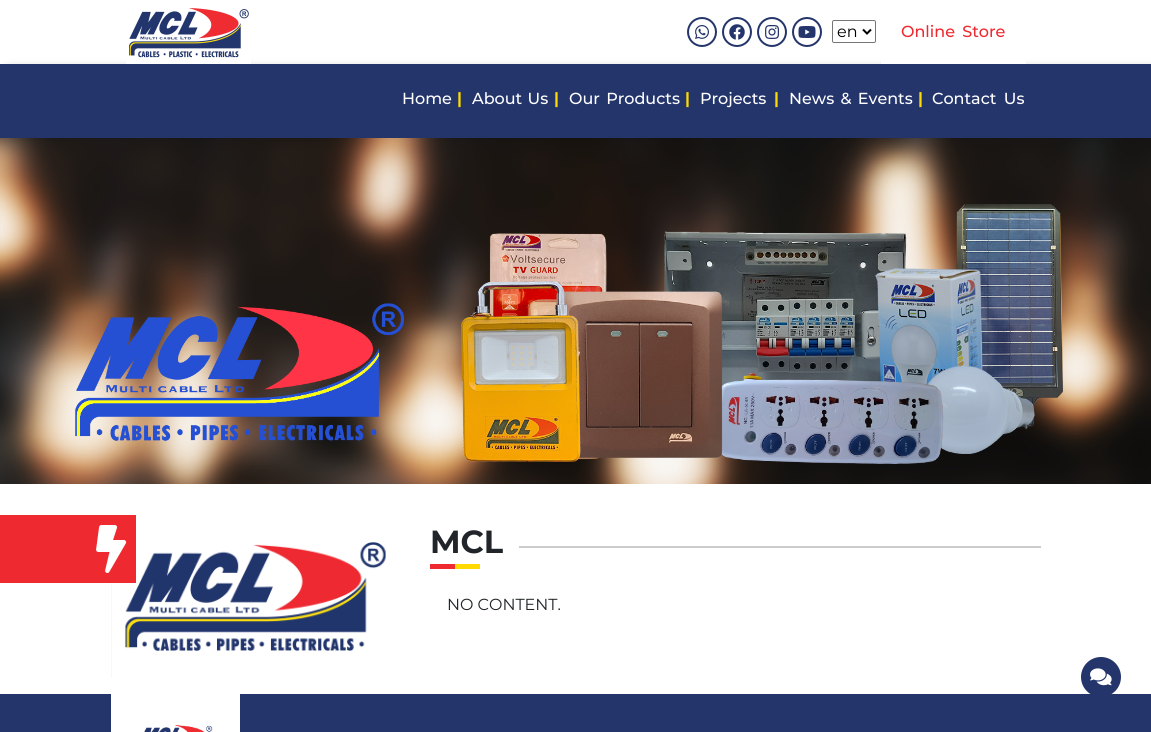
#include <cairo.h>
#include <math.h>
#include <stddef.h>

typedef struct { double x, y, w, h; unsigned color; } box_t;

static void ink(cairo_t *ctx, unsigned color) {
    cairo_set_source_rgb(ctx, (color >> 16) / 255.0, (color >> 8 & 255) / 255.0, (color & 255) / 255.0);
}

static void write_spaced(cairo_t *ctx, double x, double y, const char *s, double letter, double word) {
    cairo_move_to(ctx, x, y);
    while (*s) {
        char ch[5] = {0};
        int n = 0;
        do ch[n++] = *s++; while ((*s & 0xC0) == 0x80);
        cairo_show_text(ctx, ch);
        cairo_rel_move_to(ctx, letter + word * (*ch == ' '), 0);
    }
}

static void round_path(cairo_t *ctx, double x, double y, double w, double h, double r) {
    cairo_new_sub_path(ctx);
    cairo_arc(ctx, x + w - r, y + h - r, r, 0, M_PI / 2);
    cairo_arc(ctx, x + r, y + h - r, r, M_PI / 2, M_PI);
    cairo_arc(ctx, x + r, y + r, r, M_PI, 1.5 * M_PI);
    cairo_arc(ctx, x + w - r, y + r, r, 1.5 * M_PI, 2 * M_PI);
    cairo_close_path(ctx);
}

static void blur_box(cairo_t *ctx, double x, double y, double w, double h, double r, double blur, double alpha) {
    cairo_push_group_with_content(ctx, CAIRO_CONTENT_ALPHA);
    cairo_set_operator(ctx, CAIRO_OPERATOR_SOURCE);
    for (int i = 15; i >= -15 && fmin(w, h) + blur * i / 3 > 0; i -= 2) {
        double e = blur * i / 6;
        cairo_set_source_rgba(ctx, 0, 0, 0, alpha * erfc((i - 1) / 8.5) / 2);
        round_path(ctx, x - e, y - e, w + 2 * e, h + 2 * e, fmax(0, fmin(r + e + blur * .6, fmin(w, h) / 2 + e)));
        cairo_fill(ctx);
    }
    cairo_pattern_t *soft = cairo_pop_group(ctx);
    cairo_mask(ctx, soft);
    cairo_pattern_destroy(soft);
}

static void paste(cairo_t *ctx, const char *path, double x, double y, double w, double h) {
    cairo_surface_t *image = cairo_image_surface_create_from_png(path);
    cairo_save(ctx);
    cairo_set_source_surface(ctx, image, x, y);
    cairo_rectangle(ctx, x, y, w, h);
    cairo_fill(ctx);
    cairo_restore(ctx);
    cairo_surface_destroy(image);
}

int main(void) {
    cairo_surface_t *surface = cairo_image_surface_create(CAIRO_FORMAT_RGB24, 1151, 732);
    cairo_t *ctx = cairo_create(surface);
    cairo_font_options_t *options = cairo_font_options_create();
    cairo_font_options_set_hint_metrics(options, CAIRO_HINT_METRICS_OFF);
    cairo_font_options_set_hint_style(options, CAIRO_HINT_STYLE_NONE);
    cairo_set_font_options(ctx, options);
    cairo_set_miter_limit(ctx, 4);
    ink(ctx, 0xFFFFFF);
    cairo_paint(ctx);
    ink(ctx, 0x000000);
    blur_box(ctx, 9, 72, 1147, 70, 0, 5.5, 0.75);
    paste(ctx, "media/1.png", 126, 8, 125, 56);
    cairo_arc(ctx, 702, 32, 14, 0, 2 * M_PI);
    ink(ctx, 0x24356B);
    cairo_stroke(ctx);
    paste(ctx, "media/2.png", 695, 25, 14, 14);
    cairo_arc(ctx, 737, 32, 14, 0, 2 * M_PI);
    cairo_stroke(ctx);
    paste(ctx, "media/3.png", 729, 24, 16, 16);
    cairo_arc(ctx, 772, 32, 14, 0, 2 * M_PI);
    cairo_stroke(ctx);
    paste(ctx, "media/4.png", 765, 25, 15, 14);
    cairo_arc(ctx, 807, 32, 14, 0, 2 * M_PI);
    cairo_stroke(ctx);
    paste(ctx, "media/5.png", 798, 26, 18, 12);
    round_path(ctx, 832.5, 20.5, 43, 22, 1.5);
    ink(ctx, 0x767676);
    cairo_set_line_width(ctx, 1);
    cairo_stroke(ctx);
    cairo_new_path(ctx);
    cairo_move_to(ctx, 863, 29.5);
    cairo_line_to(ctx, 867, 33.5);
    cairo_line_to(ctx, 871, 29.5);
    ink(ctx, 0x000000);
    cairo_set_line_width(ctx, 2);
    cairo_stroke(ctx);
    cairo_select_font_face(ctx, "Montserrat", CAIRO_FONT_SLANT_NORMAL, CAIRO_FONT_WEIGHT_NORMAL);
    cairo_set_font_size(ctx, 16);
    cairo_move_to(ctx, 837, 37);
    cairo_show_text(ctx, "en");
    ink(ctx, 0xFFFFFF);
    cairo_rectangle(ctx, 881, 60, 145, 4);
    cairo_fill(ctx);
    cairo_select_font_face(ctx, "Montserrat Medium", CAIRO_FONT_SLANT_NORMAL, CAIRO_FONT_WEIGHT_NORMAL);
    ink(ctx, 0xEF2930);
    write_spaced(ctx, 901, 37, "Online Store", 0, 3);
    ink(ctx, 0x24356B);
    cairo_rectangle(ctx, 0, 64, 1151, 74);
    cairo_fill(ctx);
    ink(ctx, 0xFFFFFF);
    cairo_move_to(ctx, 402, 104);
    cairo_show_text(ctx, "Home");
    cairo_select_font_face(ctx, "Montserrat", CAIRO_FONT_SLANT_NORMAL, CAIRO_FONT_WEIGHT_BOLD);
    ink(ctx, 0xFEDA00);
    cairo_move_to(ctx, 457, 104);
    cairo_show_text(ctx, "|");
    cairo_select_font_face(ctx, "Montserrat Medium", CAIRO_FONT_SLANT_NORMAL, CAIRO_FONT_WEIGHT_NORMAL);
    ink(ctx, 0xFFFFFF);
    write_spaced(ctx, 472, 104, "About Us", 0, 1);
    cairo_select_font_face(ctx, "Montserrat", CAIRO_FONT_SLANT_NORMAL, CAIRO_FONT_WEIGHT_BOLD);
    ink(ctx, 0xFEDA00);
    cairo_move_to(ctx, 554, 104);
    cairo_show_text(ctx, "|");
    cairo_select_font_face(ctx, "Montserrat Medium", CAIRO_FONT_SLANT_NORMAL, CAIRO_FONT_WEIGHT_NORMAL);
    ink(ctx, 0xFFFFFF);
    write_spaced(ctx, 569, 104, "Our Products", 0, 2);
    cairo_select_font_face(ctx, "Montserrat", CAIRO_FONT_SLANT_NORMAL, CAIRO_FONT_WEIGHT_BOLD);
    ink(ctx, 0xFEDA00);
    cairo_move_to(ctx, 685, 104);
    cairo_show_text(ctx, "|");
    cairo_select_font_face(ctx, "Montserrat Medium", CAIRO_FONT_SLANT_NORMAL, CAIRO_FONT_WEIGHT_NORMAL);
    ink(ctx, 0xFFFFFF);
    cairo_move_to(ctx, 700, 104);
    cairo_show_text(ctx, "Projects");
    cairo_select_font_face(ctx, "Montserrat", CAIRO_FONT_SLANT_NORMAL, CAIRO_FONT_WEIGHT_BOLD);
    ink(ctx, 0xFEDA00);
    cairo_move_to(ctx, 774, 104);
    cairo_show_text(ctx, "|");
    cairo_select_font_face(ctx, "Montserrat Medium", CAIRO_FONT_SLANT_NORMAL, CAIRO_FONT_WEIGHT_NORMAL);
    ink(ctx, 0xFFFFFF);
    write_spaced(ctx, 789, 104, "News & Events", 0, 2);
    cairo_select_font_face(ctx, "Montserrat", CAIRO_FONT_SLANT_NORMAL, CAIRO_FONT_WEIGHT_BOLD);
    ink(ctx, 0xFEDA00);
    cairo_move_to(ctx, 918, 104);
    cairo_show_text(ctx, "|");
    cairo_select_font_face(ctx, "Montserrat Medium", CAIRO_FONT_SLANT_NORMAL, CAIRO_FONT_WEIGHT_NORMAL);
    ink(ctx, 0xFFFFFF);
    write_spaced(ctx, 932, 104, "Contact Us", 0, 3);
    paste(ctx, "media/6.png", 0, 138, 1151, 346);
    paste(ctx, "media/8.png", 111, 515, 275, 163);
    ink(ctx, 0xEF2930);
    cairo_rectangle(ctx, 0, 515, 136, 68);
    cairo_fill(ctx);
    paste(ctx, "media/7.png", 96, 525, 31, 48);
    cairo_select_font_face(ctx, "Montserrat", CAIRO_FONT_SLANT_NORMAL, CAIRO_FONT_WEIGHT_BOLD);
    cairo_set_font_size(ctx, 32);
    ink(ctx, 0x212529);
    cairo_move_to(ctx, 430, 553);
    cairo_show_text(ctx, "MCL");
    {
        static const box_t items[] = {
            {519, 546, 522, 2, 0xCCCCCC},
            {430, 564, 25, 5, 0xEF2930},
            {455, 564, 25, 5, 0xFEDA00},
        };
        for (size_t i = 0; i < sizeof items / sizeof *items; i++) {
            ink(ctx, items[i].color);
            cairo_rectangle(ctx, items[i].x, items[i].y, items[i].w, items[i].h);
            cairo_fill(ctx);
        }
    }
    cairo_select_font_face(ctx, "Montserrat", CAIRO_FONT_SLANT_NORMAL, CAIRO_FONT_WEIGHT_NORMAL);
    cairo_set_font_size(ctx, 16);
    ink(ctx, 0x212529);
    cairo_move_to(ctx, 447, 610);
    cairo_show_text(ctx, "NO CONTENT.");
    ink(ctx, 0x24356B);
    cairo_rectangle(ctx, 0, 694, 1151, 38);
    cairo_fill(ctx);
    cairo_arc(ctx, 1101, 677, 20, 0, 2 * M_PI);
    cairo_fill(ctx);
    paste(ctx, "media/9.png", 1090, 668, 22, 18);
    paste(ctx, "media/10.png", 111, 694, 129, 38);
    cairo_surface_write_to_png(surface, "image.png");
    cairo_font_options_destroy(options);
    cairo_destroy(ctx);
    cairo_surface_destroy(surface);
    return 0;
}
